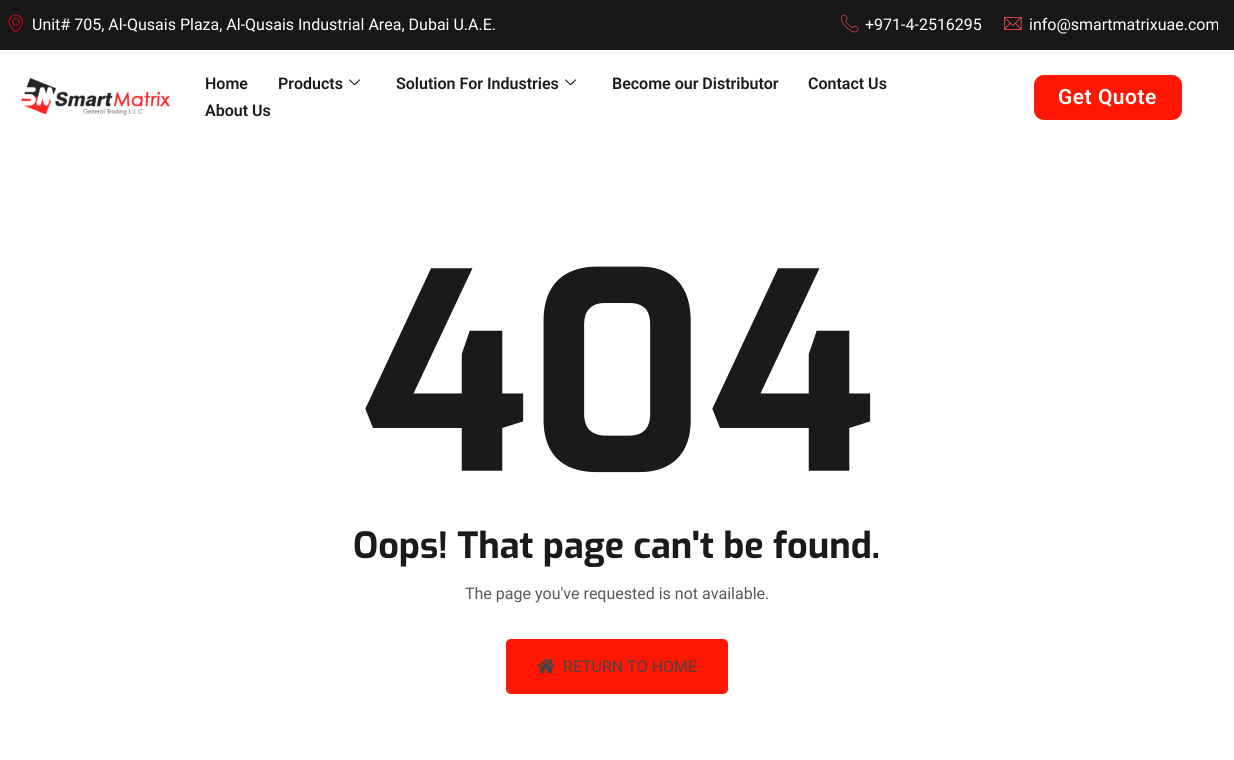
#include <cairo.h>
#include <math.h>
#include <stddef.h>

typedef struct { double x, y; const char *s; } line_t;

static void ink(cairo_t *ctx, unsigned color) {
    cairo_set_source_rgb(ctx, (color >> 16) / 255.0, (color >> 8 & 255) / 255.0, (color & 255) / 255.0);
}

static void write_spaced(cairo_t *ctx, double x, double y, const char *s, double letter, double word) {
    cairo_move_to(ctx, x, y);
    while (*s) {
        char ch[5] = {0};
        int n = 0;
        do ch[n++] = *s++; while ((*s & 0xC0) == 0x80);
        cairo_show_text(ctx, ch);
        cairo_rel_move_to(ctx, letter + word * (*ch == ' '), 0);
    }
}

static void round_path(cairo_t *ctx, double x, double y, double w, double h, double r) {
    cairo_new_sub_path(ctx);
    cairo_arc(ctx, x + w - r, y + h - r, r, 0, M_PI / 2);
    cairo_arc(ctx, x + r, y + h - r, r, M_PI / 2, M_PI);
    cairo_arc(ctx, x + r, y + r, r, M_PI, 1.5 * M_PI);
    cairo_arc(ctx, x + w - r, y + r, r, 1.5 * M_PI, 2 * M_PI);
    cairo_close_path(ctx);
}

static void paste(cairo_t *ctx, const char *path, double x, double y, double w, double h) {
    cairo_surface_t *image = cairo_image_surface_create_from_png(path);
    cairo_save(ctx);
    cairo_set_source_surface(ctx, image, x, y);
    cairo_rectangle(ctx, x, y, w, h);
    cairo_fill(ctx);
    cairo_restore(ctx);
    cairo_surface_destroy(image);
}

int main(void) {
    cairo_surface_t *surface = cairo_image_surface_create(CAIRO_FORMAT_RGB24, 1234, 760);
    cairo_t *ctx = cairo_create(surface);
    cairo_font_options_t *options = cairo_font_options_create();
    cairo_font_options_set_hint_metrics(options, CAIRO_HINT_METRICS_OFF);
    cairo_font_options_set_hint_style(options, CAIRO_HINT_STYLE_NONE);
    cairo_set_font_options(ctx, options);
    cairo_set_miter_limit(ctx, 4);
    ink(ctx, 0xFFFFFF);
    cairo_paint(ctx);
    ink(ctx, 0x171717);
    cairo_rectangle(ctx, 0, 0, 1234, 50);
    cairo_fill(ctx);
    paste(ctx, "media/1.png", 8, 14, 15, 19);
    cairo_select_font_face(ctx, "Roboto", CAIRO_FONT_SLANT_NORMAL, CAIRO_FONT_WEIGHT_NORMAL);
    cairo_set_font_size(ctx, 16);
    ink(ctx, 0xFFFFFF);
    cairo_move_to(ctx, 32, 30);
    cairo_show_text(ctx, "Unit# 705, Al-Qusais Plaza, Al-Qusais Industrial Area, Dubai U.A.E.");
    paste(ctx, "media/2.png", 841, 14, 18, 19);
    cairo_move_to(ctx, 865, 30);
    cairo_show_text(ctx, "+971-4-2516295");
    paste(ctx, "media/3.png", 1004, 17, 18, 13);
    cairo_move_to(ctx, 1029, 30);
    cairo_show_text(ctx, "info@smartmatrixuae.com");
    paste(ctx, "media/4.png", 21, 78, 149, 38);
    cairo_select_font_face(ctx, "Roboto SemiBold", CAIRO_FONT_SLANT_NORMAL, CAIRO_FONT_WEIGHT_NORMAL);
    ink(ctx, 0x1A1A1A);
    cairo_move_to(ctx, 205, 89);
    cairo_show_text(ctx, "Home");
    cairo_move_to(ctx, 278, 89);
    cairo_show_text(ctx, "Products");
    paste(ctx, "media/5.png", 349, 79, 11, 7);
    cairo_move_to(ctx, 396, 89);
    cairo_show_text(ctx, "Solution For Industries");
    paste(ctx, "media/5.png", 565, 79, 11, 7);
    {
        static const line_t items[] = {
            {612, 89, "Become our Distributor"},
            {808, 89, "Contact Us"},
            {205, 116, "About Us"},
        };
        for (size_t i = 0; i < sizeof items / sizeof *items; i++) {
            cairo_move_to(ctx, items[i].x, items[i].y);
            cairo_show_text(ctx, items[i].s);
        }
    }
    ink(ctx, 0xFF1703);
    round_path(ctx, 1034, 75, 148, 45, 10);
    cairo_fill(ctx);
    cairo_set_font_size(ctx, 21);
    ink(ctx, 0xFFFFFF);
    write_spaced(ctx, 1058, 104, "Get Quote", 0.5, 0);
    cairo_select_font_face(ctx, "Exo", CAIRO_FONT_SLANT_NORMAL, CAIRO_FONT_WEIGHT_BOLD);
    cairo_set_font_size(ctx, 274);
    ink(ctx, 0x1A1A1A);
    cairo_move_to(ctx, 359, 471);
    cairo_show_text(ctx, "404");
    cairo_set_font_size(ctx, 36);
    cairo_move_to(ctx, 353, 558);
    cairo_show_text(ctx, "Oops! That page can't be found.");
    cairo_select_font_face(ctx, "Roboto", CAIRO_FONT_SLANT_NORMAL, CAIRO_FONT_WEIGHT_NORMAL);
    cairo_set_font_size(ctx, 16);
    ink(ctx, 0x55595D);
    cairo_move_to(ctx, 465, 599);
    cairo_show_text(ctx, "The page you've requested is not available.");
    ink(ctx, 0xFF1703);
    round_path(ctx, 506, 639, 222, 55, 5);
    cairo_fill(ctx);
    paste(ctx, "media/6.png", 537, 659, 18, 14);
    ink(ctx, 0x444444);
    cairo_move_to(ctx, 563, 672);
    cairo_show_text(ctx, "RETURN TO HOME");
    cairo_surface_write_to_png(surface, "image.png");
    cairo_font_options_destroy(options);
    cairo_destroy(ctx);
    cairo_surface_destroy(surface);
    return 0;
}
